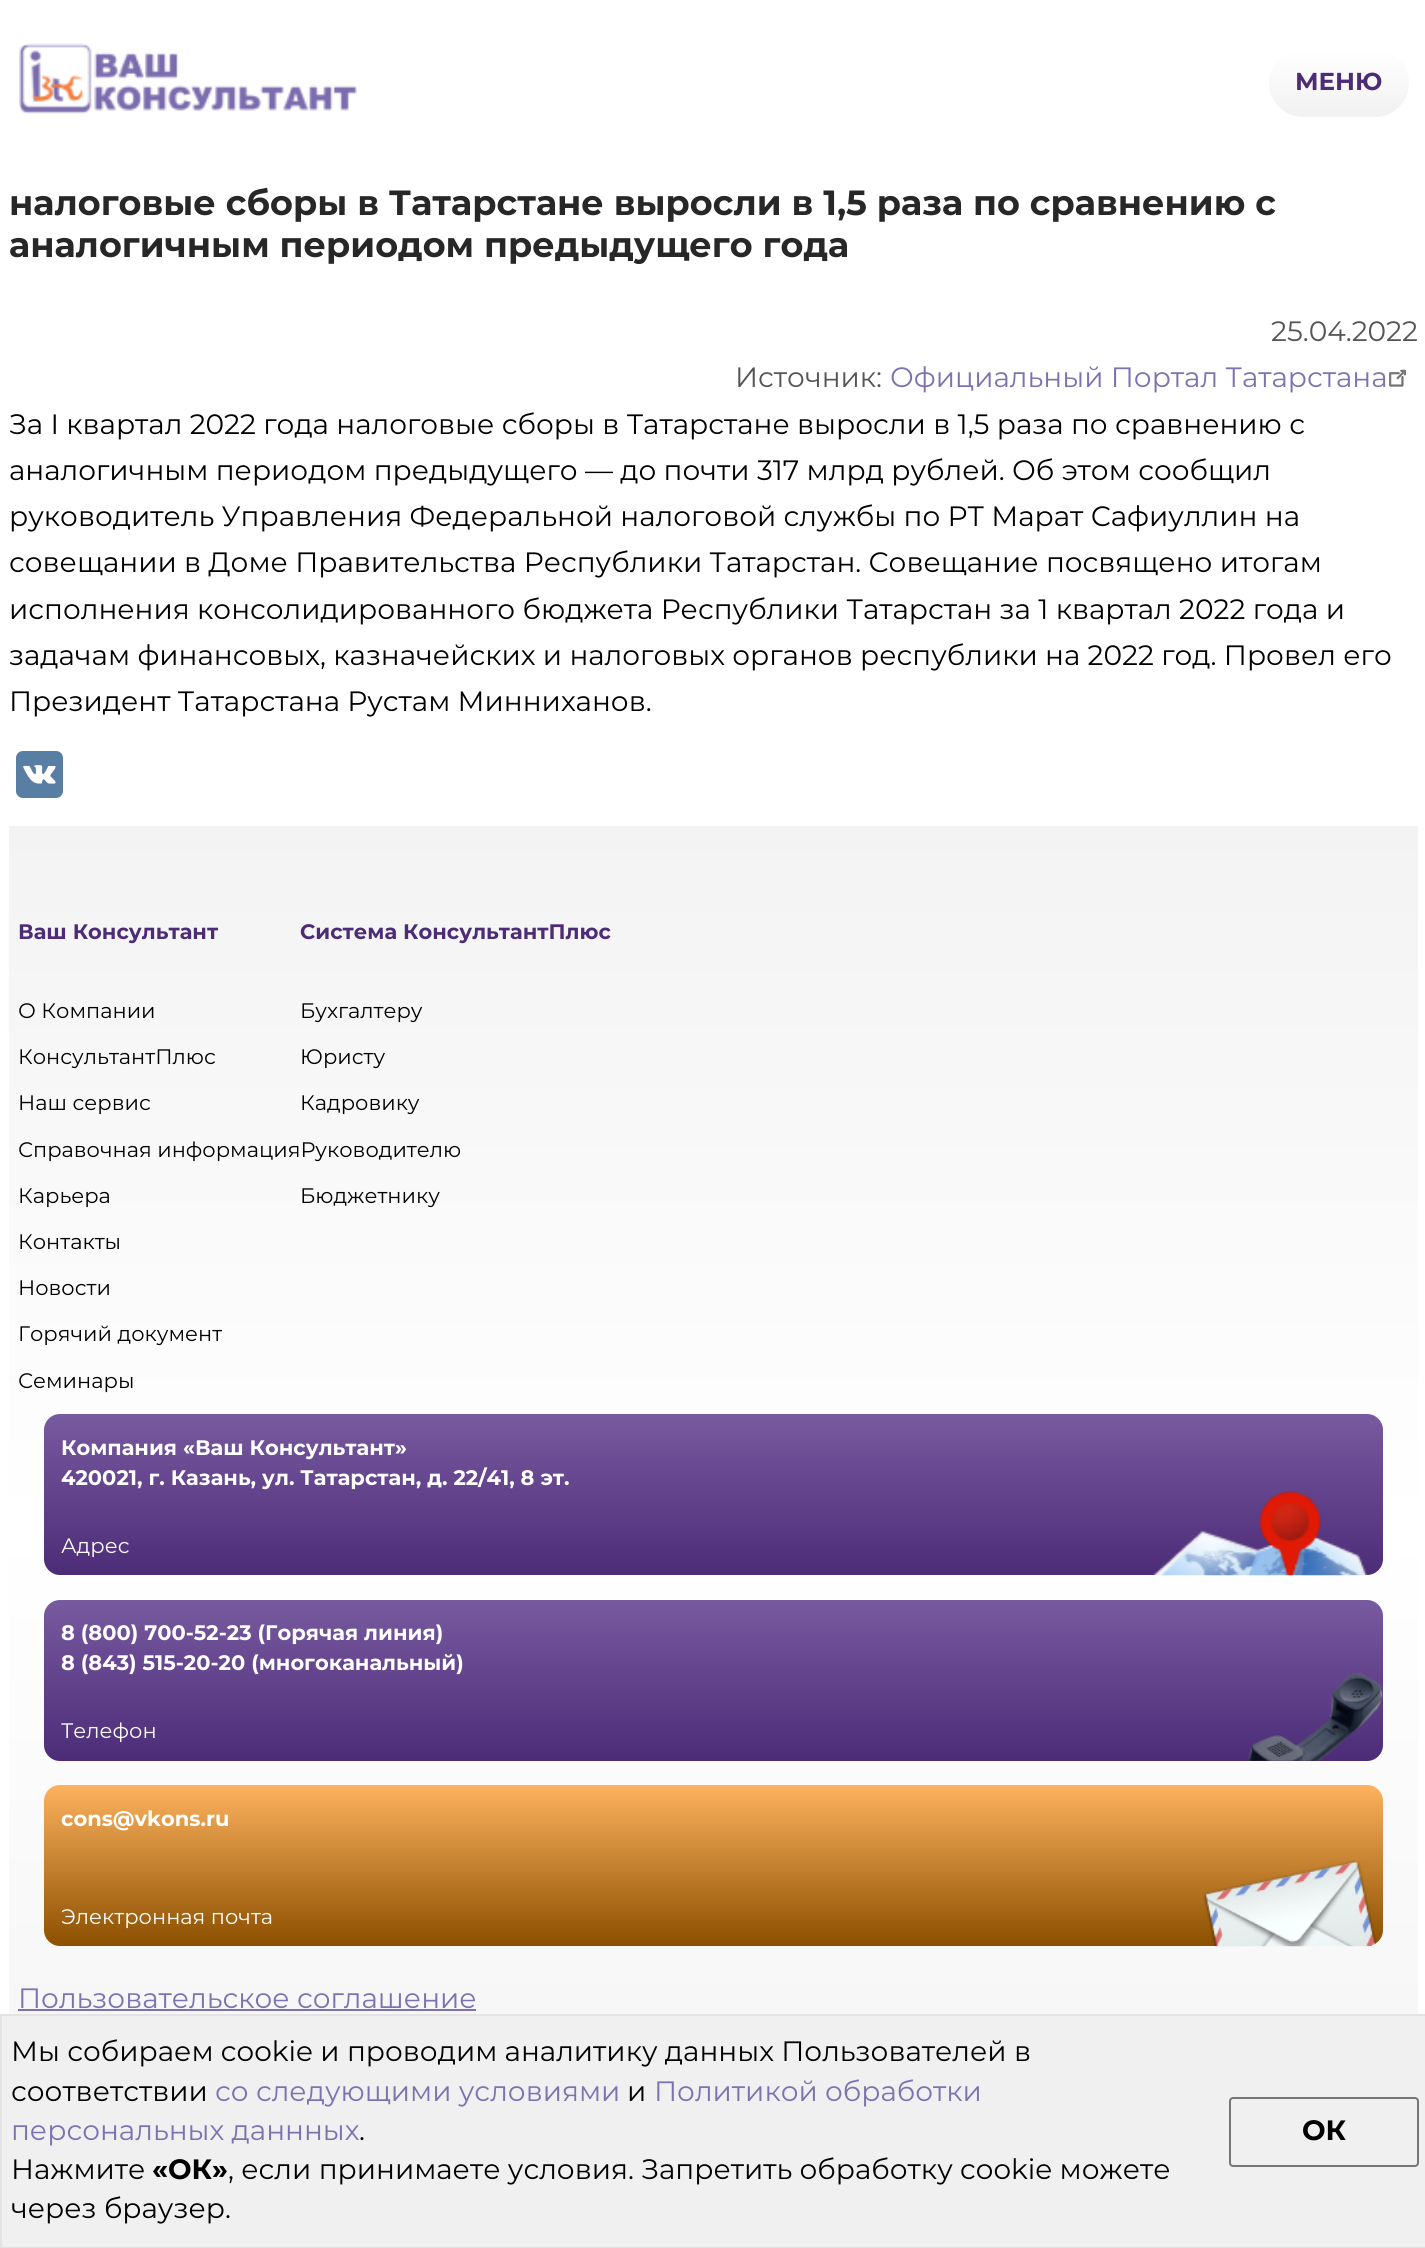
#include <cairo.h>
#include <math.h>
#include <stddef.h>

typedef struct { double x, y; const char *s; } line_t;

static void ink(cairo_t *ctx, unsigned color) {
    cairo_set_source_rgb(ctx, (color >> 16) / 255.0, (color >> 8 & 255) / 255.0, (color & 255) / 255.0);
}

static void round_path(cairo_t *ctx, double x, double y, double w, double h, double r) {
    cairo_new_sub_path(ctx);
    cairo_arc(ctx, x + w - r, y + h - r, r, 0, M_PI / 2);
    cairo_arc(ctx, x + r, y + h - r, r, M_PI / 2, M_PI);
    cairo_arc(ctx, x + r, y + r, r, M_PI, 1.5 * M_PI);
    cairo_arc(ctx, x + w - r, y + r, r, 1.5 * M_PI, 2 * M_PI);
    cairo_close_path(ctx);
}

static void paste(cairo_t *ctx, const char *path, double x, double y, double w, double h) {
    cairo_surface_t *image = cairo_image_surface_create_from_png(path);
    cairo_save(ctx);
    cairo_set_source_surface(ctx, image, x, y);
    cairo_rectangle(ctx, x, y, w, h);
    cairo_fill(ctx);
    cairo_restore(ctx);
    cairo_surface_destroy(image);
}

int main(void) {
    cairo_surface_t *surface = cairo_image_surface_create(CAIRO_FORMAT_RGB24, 1425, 2248);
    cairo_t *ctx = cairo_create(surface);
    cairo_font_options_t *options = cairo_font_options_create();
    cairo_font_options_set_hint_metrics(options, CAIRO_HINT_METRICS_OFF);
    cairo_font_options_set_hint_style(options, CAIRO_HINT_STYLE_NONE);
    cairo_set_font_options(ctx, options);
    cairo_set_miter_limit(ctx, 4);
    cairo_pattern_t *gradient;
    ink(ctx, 0xFFFFFF);
    cairo_paint(ctx);
    paste(ctx, "media/1.png", 19, 43, 338, 71);
    gradient = cairo_pattern_create_linear(1339, 49, 1339, 117);
    cairo_pattern_add_color_stop_rgba(gradient, 0, 1, 1, 1, 1);
    cairo_pattern_add_color_stop_rgba(gradient, 1, 0.945, 0.945, 0.945, 1);
    cairo_set_source(ctx, gradient);
    cairo_pattern_destroy(gradient);
    round_path(ctx, 1269, 49, 140, 68, 34);
    cairo_fill(ctx);
    cairo_select_font_face(ctx, "Montserrat", CAIRO_FONT_SLANT_NORMAL, CAIRO_FONT_WEIGHT_BOLD);
    cairo_set_font_size(ctx, 24.5);
    ink(ctx, 0x4C2C77);
    cairo_move_to(ctx, 1295, 90);
    cairo_show_text(ctx, "МЕНЮ");
    cairo_set_font_size(ctx, 35);
    ink(ctx, 0x272727);
    cairo_move_to(ctx, 9, 215);
    cairo_show_text(ctx, "налоговые сборы в Татарстане выросли в 1,5 раза по сравнению с");
    cairo_move_to(ctx, 9, 257);
    cairo_show_text(ctx, "аналогичным периодом предыдущего года");
    cairo_select_font_face(ctx, "Montserrat", CAIRO_FONT_SLANT_NORMAL, CAIRO_FONT_WEIGHT_NORMAL);
    cairo_set_font_size(ctx, 28);
    ink(ctx, 0x555555);
    cairo_move_to(ctx, 1271, 341);
    cairo_show_text(ctx, "25.04.2022");
    cairo_move_to(ctx, 735, 387);
    cairo_show_text(ctx, "Источник:");
    ink(ctx, 0x7E71B1);
    cairo_move_to(ctx, 890, 387);
    cairo_show_text(ctx, "Официальный Портал Татарстана");
    paste(ctx, "media/2.png", 1389, 369, 17, 18);
    ink(ctx, 0x000000);
    {
        static const line_t items[] = {
            {9, 434, "За I квартал 2022 года налоговые сборы в Татарстане выросли в 1,5 раза по сравнению с"},
            {9, 480, "аналогичным периодом предыдущего — до почти 317 млрд рублей. Об этом сообщил"},
            {9, 526, "руководитель Управления Федеральной налоговой службы по РТ Марат Сафиуллин на"},
            {9, 572, "совещании в Доме Правительства Республики Татарстан. Совещание посвящено итогам"},
            {9, 619, "исполнения консолидированного бюджета Республики Татарстан за 1 квартал 2022 года и"},
            {9, 665, "задачам финансовых, казначейских и налоговых органов республики на 2022 год. Провел его"},
            {9, 711, "Президент Татарстана Рустам Минниханов."},
        };
        for (size_t i = 0; i < sizeof items / sizeof *items; i++) {
            cairo_move_to(ctx, items[i].x, items[i].y);
            cairo_show_text(ctx, items[i].s);
        }
    }
    ink(ctx, 0x587EA3);
    round_path(ctx, 16, 751, 47, 47, 7);
    cairo_fill(ctx);
    paste(ctx, "media/3.png", 23, 765, 33, 19);
    gradient = cairo_pattern_create_linear(713, 826, 713, 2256);
    cairo_pattern_add_color_stop_rgba(gradient, 0, 0.953, 0.953, 0.953, 1);
    cairo_pattern_add_color_stop_rgba(gradient, 0.49, 1, 1, 1, 1);
    cairo_pattern_add_color_stop_rgba(gradient, 1, 0.953, 0.953, 0.953, 1);
    cairo_set_source(ctx, gradient);
    cairo_pattern_destroy(gradient);
    cairo_rectangle(ctx, 9, 826, 1409, 1188);
    cairo_fill(ctx);
    cairo_select_font_face(ctx, "Montserrat", CAIRO_FONT_SLANT_NORMAL, CAIRO_FONT_WEIGHT_BOLD);
    cairo_set_font_size(ctx, 21);
    ink(ctx, 0x4C2C77);
    cairo_move_to(ctx, 18, 939);
    cairo_show_text(ctx, "Ваш Консультант");
    cairo_select_font_face(ctx, "Montserrat", CAIRO_FONT_SLANT_NORMAL, CAIRO_FONT_WEIGHT_NORMAL);
    ink(ctx, 0x000000);
    {
        static const line_t items[] = {
            {18, 1018, "О Компании"},
            {18, 1064, "КонсультантПлюс"},
            {18, 1110, "Наш сервис"},
            {18, 1157, "Справочная информацияРуководителю"},
            {18, 1203, "Карьера"},
            {18, 1249, "Контакты"},
            {18, 1295, "Новости"},
            {18, 1341, "Горячий документ"},
            {18, 1388, "Семинары"},
        };
        for (size_t i = 0; i < sizeof items / sizeof *items; i++) {
            cairo_move_to(ctx, items[i].x, items[i].y);
            cairo_show_text(ctx, items[i].s);
        }
    }
    cairo_select_font_face(ctx, "Montserrat", CAIRO_FONT_SLANT_NORMAL, CAIRO_FONT_WEIGHT_BOLD);
    ink(ctx, 0x4C2C77);
    cairo_move_to(ctx, 300, 939);
    cairo_show_text(ctx, "Система КонсультантПлюс");
    cairo_select_font_face(ctx, "Montserrat", CAIRO_FONT_SLANT_NORMAL, CAIRO_FONT_WEIGHT_NORMAL);
    ink(ctx, 0x000000);
    {
        static const line_t items[] = {
            {300, 1018, "Бухгалтеру"},
            {300, 1064, "Юристу"},
            {300, 1110, "Кадровику"},
            {300, 1203, "Бюджетнику"},
        };
        for (size_t i = 0; i < sizeof items / sizeof *items; i++) {
            cairo_move_to(ctx, items[i].x, items[i].y);
            cairo_show_text(ctx, items[i].s);
        }
    }
    gradient = cairo_pattern_create_linear(713, 1414, 713, 1575);
    cairo_pattern_add_color_stop_rgba(gradient, 0, 0.471, 0.353, 0.627, 1);
    cairo_pattern_add_color_stop_rgba(gradient, 1, 0.298, 0.173, 0.467, 1);
    cairo_set_source(ctx, gradient);
    cairo_pattern_destroy(gradient);
    round_path(ctx, 44, 1414, 1339, 161, 16);
    cairo_fill(ctx);
    cairo_select_font_face(ctx, "Montserrat", CAIRO_FONT_SLANT_NORMAL, CAIRO_FONT_WEIGHT_BOLD);
    ink(ctx, 0xFFFFFF);
    cairo_move_to(ctx, 61, 1455);
    cairo_show_text(ctx, "Компания «Ваш Консультант»");
    cairo_move_to(ctx, 61, 1485);
    cairo_show_text(ctx, "420021, г. Казань, ул. Татарстан, д. 22/41, 8 эт.");
    cairo_select_font_face(ctx, "Montserrat", CAIRO_FONT_SLANT_NORMAL, CAIRO_FONT_WEIGHT_NORMAL);
    cairo_move_to(ctx, 61, 1553);
    cairo_show_text(ctx, "Адрес");
    paste(ctx, "media/4.png", 1153, 1491, 215, 85);
    gradient = cairo_pattern_create_linear(713, 1600, 713, 1761);
    cairo_pattern_add_color_stop_rgba(gradient, 0, 0.471, 0.353, 0.627, 1);
    cairo_pattern_add_color_stop_rgba(gradient, 1, 0.298, 0.173, 0.467, 1);
    cairo_set_source(ctx, gradient);
    cairo_pattern_destroy(gradient);
    round_path(ctx, 44, 1600, 1339, 161, 16);
    cairo_fill(ctx);
    cairo_select_font_face(ctx, "Montserrat", CAIRO_FONT_SLANT_NORMAL, CAIRO_FONT_WEIGHT_BOLD);
    ink(ctx, 0xFFFFFF);
    cairo_move_to(ctx, 61, 1640);
    cairo_show_text(ctx, "8 (800) 700-52-23 (Горячая линия)");
    cairo_move_to(ctx, 61, 1670);
    cairo_show_text(ctx, "8 (843) 515-20-20 (многоканальный)");
    cairo_select_font_face(ctx, "Montserrat", CAIRO_FONT_SLANT_NORMAL, CAIRO_FONT_WEIGHT_NORMAL);
    cairo_move_to(ctx, 61, 1738);
    cairo_show_text(ctx, "Телефон");
    paste(ctx, "media/5.png", 1248, 1673, 135, 88);
    gradient = cairo_pattern_create_linear(713, 1785, 713, 1946);
    cairo_pattern_add_color_stop_rgba(gradient, 0, 0.992, 0.698, 0.369, 1);
    cairo_pattern_add_color_stop_rgba(gradient, 1, 0.549, 0.314, 0, 1);
    cairo_set_source(ctx, gradient);
    cairo_pattern_destroy(gradient);
    round_path(ctx, 44, 1785, 1339, 161, 16);
    cairo_fill(ctx);
    cairo_select_font_face(ctx, "Montserrat", CAIRO_FONT_SLANT_NORMAL, CAIRO_FONT_WEIGHT_BOLD);
    ink(ctx, 0xFFFFFF);
    cairo_move_to(ctx, 61, 1826);
    cairo_show_text(ctx, "cons@vkons.ru");
    cairo_select_font_face(ctx, "Montserrat", CAIRO_FONT_SLANT_NORMAL, CAIRO_FONT_WEIGHT_NORMAL);
    cairo_move_to(ctx, 61, 1924);
    cairo_show_text(ctx, "Электронная почта");
    paste(ctx, "media/6.png", 1203, 1860, 174, 87);
    cairo_set_font_size(ctx, 28);
    ink(ctx, 0x7E71B1);
    cairo_move_to(ctx, 18, 2008);
    cairo_show_text(ctx, "Пользовательское соглашение");
    cairo_rectangle(ctx, 18, 2009, 458, 2);
    cairo_fill(ctx);
    ink(ctx, 0xF0F0F0);
    cairo_rectangle(ctx, 1, 2015, 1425, 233);
    cairo_fill_preserve(ctx);
    ink(ctx, 0xE3E3E3);
    cairo_stroke(ctx);
    ink(ctx, 0x000000);
    cairo_move_to(ctx, 11, 2061);
    cairo_show_text(ctx, "Мы собираем cookie и проводим аналитику данных Пользователей в");
    cairo_move_to(ctx, 11, 2101);
    cairo_show_text(ctx, "соответствии");
    ink(ctx, 0x7E71B1);
    cairo_move_to(ctx, 215, 2101);
    cairo_show_text(ctx, "со следующими условиями");
    ink(ctx, 0x000000);
    cairo_move_to(ctx, 627, 2101);
    cairo_show_text(ctx, "и");
    ink(ctx, 0x7E71B1);
    cairo_move_to(ctx, 654, 2101);
    cairo_show_text(ctx, "Политикой обработки");
    cairo_move_to(ctx, 11, 2140);
    cairo_show_text(ctx, "персональных даннных");
    ink(ctx, 0x000000);
    cairo_move_to(ctx, 359, 2140);
    cairo_show_text(ctx, ".");
    cairo_move_to(ctx, 11, 2179);
    cairo_show_text(ctx, "Нажмите");
    cairo_select_font_face(ctx, "Montserrat", CAIRO_FONT_SLANT_NORMAL, CAIRO_FONT_WEIGHT_BOLD);
    cairo_move_to(ctx, 152, 2179);
    cairo_show_text(ctx, "«ОК»");
    cairo_select_font_face(ctx, "Montserrat", CAIRO_FONT_SLANT_NORMAL, CAIRO_FONT_WEIGHT_NORMAL);
    cairo_move_to(ctx, 228, 2179);
    cairo_show_text(ctx, ", если принимаете условия. Запретить обработку cookie можете");
    cairo_move_to(ctx, 11, 2218);
    cairo_show_text(ctx, "через браузер.");
    round_path(ctx, 1230, 2098, 188, 68, 3);
    ink(ctx, 0x767676);
    cairo_stroke(ctx);
    cairo_select_font_face(ctx, "Montserrat", CAIRO_FONT_SLANT_NORMAL, CAIRO_FONT_WEIGHT_BOLD);
    ink(ctx, 0x000000);
    cairo_move_to(ctx, 1302, 2140);
    cairo_show_text(ctx, "ОК");
    cairo_surface_write_to_png(surface, "image.png");
    cairo_font_options_destroy(options);
    cairo_destroy(ctx);
    cairo_surface_destroy(surface);
    return 0;
}
